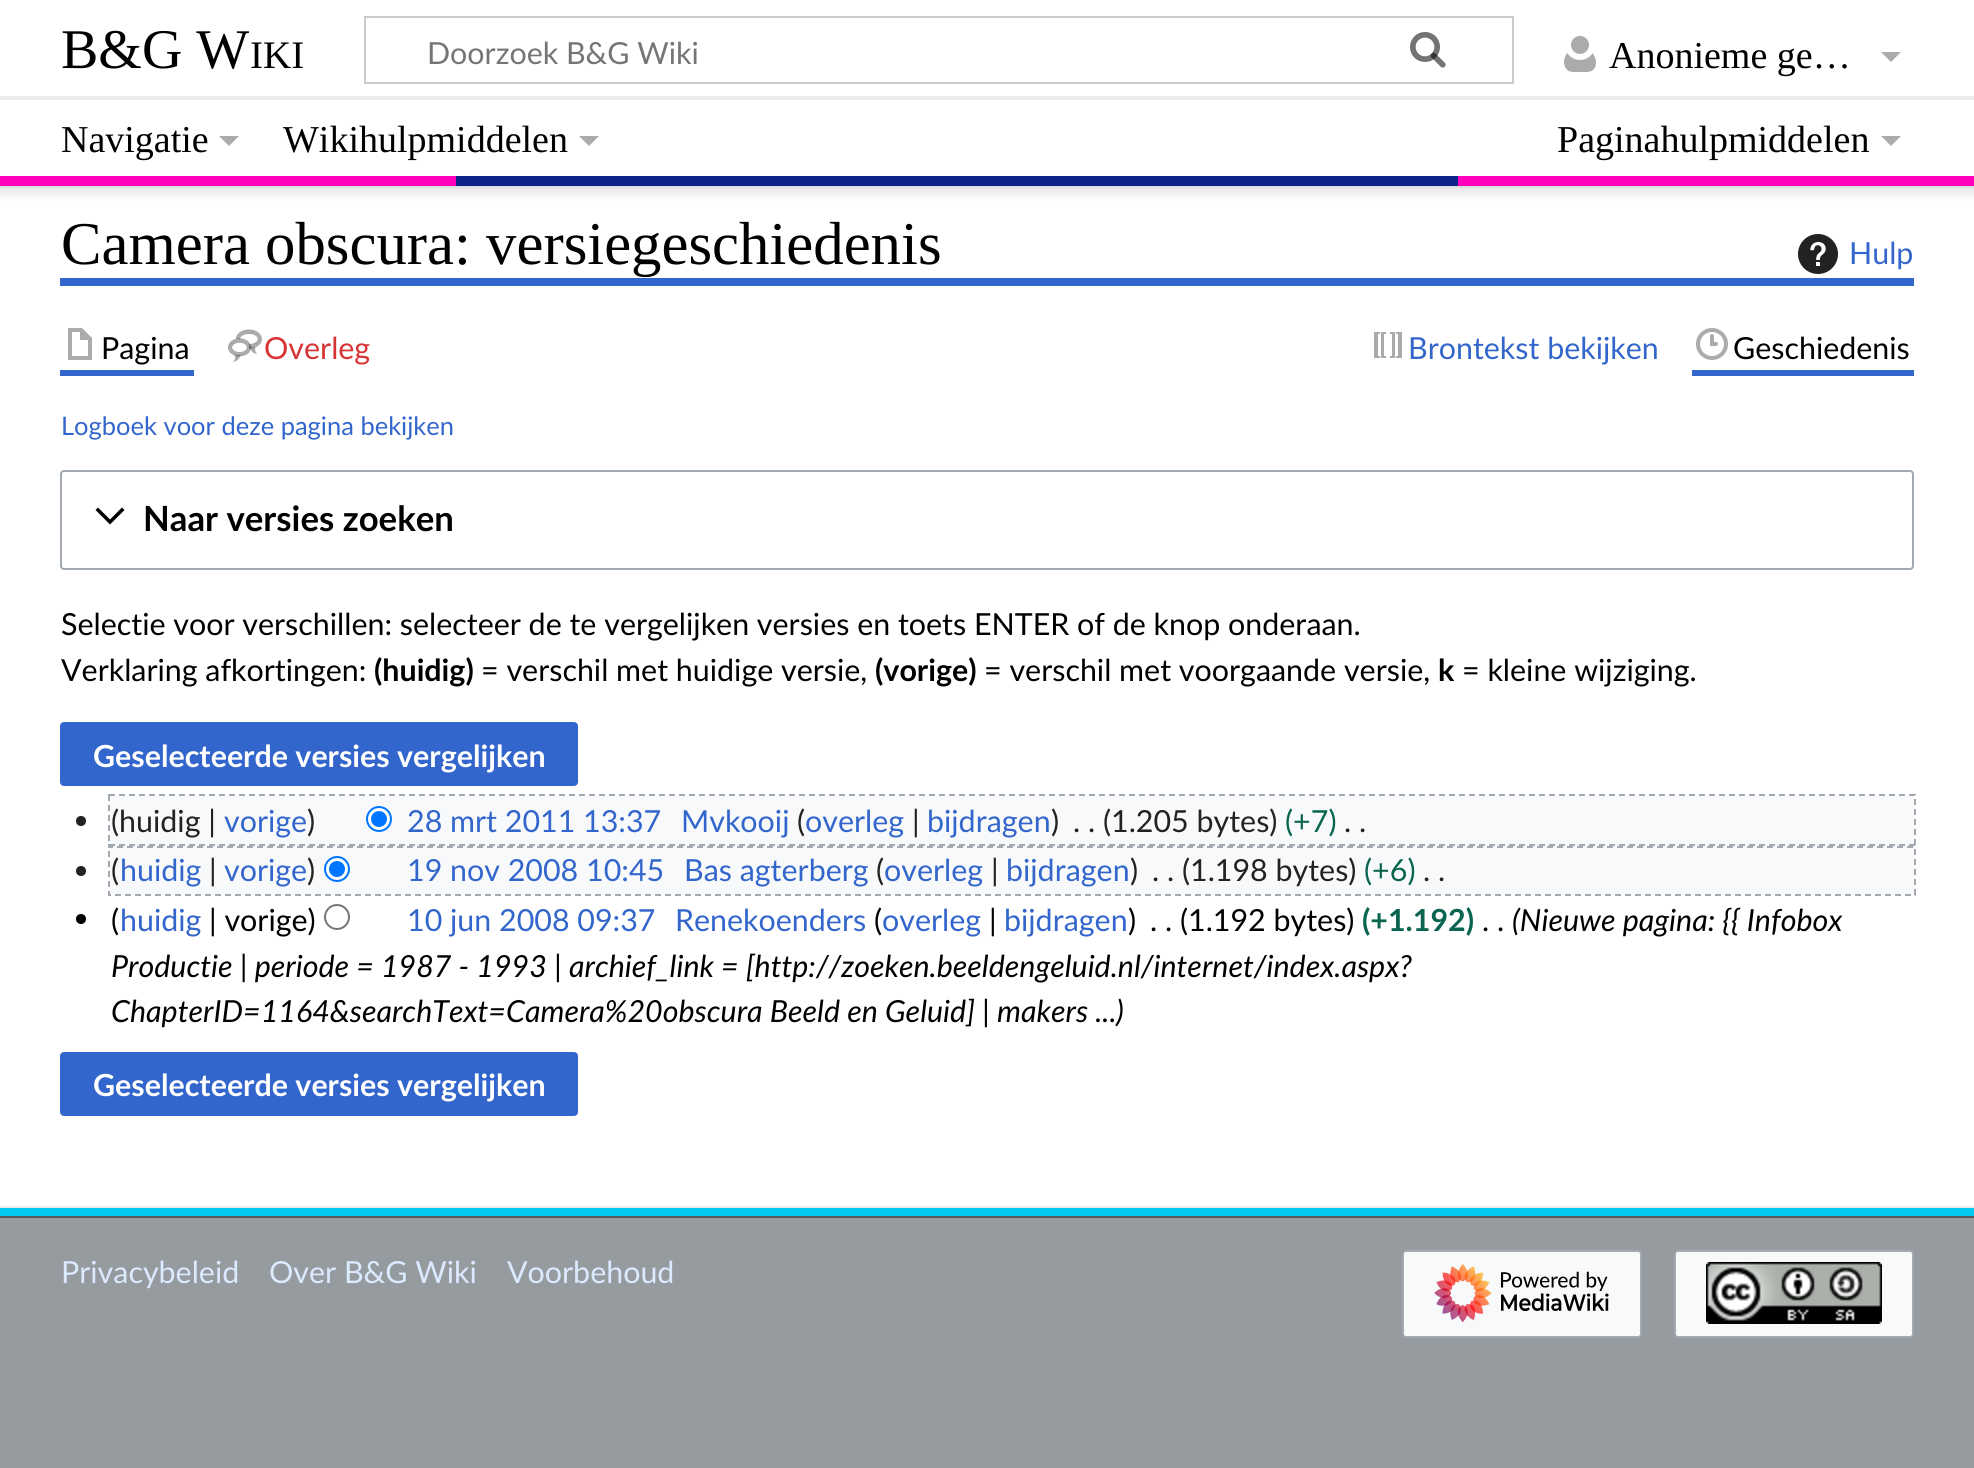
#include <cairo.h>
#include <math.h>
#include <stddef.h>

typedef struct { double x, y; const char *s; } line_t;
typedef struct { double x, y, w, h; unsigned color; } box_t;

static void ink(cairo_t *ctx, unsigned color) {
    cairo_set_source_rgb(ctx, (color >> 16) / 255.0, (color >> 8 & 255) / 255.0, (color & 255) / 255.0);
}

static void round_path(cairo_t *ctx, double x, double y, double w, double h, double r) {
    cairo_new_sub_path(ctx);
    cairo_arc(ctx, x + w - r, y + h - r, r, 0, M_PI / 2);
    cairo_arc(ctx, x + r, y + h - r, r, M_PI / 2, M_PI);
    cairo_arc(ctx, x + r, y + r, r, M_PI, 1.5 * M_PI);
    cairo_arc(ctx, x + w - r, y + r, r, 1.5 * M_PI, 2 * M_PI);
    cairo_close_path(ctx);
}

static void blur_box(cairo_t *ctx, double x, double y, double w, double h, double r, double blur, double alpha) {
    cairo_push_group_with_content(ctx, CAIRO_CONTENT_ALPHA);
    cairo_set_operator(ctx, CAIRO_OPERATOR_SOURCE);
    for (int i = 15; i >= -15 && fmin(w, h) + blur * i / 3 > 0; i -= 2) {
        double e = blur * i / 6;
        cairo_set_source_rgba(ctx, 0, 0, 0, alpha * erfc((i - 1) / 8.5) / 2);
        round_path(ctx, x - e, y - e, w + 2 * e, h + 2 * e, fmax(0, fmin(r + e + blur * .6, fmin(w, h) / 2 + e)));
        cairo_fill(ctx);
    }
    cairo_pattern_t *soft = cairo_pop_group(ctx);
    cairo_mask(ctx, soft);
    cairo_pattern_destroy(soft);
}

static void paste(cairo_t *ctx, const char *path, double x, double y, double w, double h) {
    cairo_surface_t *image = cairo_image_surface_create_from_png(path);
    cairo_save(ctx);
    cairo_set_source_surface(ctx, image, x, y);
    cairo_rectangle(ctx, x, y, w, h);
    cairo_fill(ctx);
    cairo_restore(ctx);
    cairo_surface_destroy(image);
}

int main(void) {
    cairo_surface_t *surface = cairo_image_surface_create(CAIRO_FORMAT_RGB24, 1974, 1468);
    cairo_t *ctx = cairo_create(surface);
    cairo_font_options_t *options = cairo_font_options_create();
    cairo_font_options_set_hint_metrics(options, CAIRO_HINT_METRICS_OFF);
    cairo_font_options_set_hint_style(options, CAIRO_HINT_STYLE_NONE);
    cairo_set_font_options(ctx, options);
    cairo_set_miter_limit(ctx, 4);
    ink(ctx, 0x969BA0);
    cairo_paint(ctx);
    ink(ctx, 0xFFFFFF);
    cairo_rectangle(ctx, 0, 186, 1974, 1020);
    cairo_fill(ctx);
    ink(ctx, 0x000000);
    blur_box(ctx, 0, 96, 1974, 90, 0, 2, 0.2);
    blur_box(ctx, -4, 98, 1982, 98, 0, 3, 0.07);
    ink(ctx, 0xFFFFFF);
    cairo_rectangle(ctx, 0, 0, 1974, 96);
    cairo_fill(ctx);
    cairo_select_font_face(ctx, "Liberation Serif", CAIRO_FONT_SLANT_NORMAL, CAIRO_FONT_WEIGHT_NORMAL);
    cairo_set_font_size(ctx, 56);
    ink(ctx, 0x000000);
    cairo_move_to(ctx, 61, 68);
    cairo_show_text(ctx, "B&G W");
    cairo_set_font_size(ctx, 39);
    cairo_move_to(ctx, 250, 68);
    cairo_show_text(ctx, "IKI");
    cairo_rectangle(ctx, 365, 17, 1148, 66);
    ink(ctx, 0xC8CCD1);
    cairo_stroke(ctx);
    paste(ctx, "media/1.png", 1410, 32, 36, 36);
    cairo_select_font_face(ctx, "Lato", CAIRO_FONT_SLANT_NORMAL, CAIRO_FONT_WEIGHT_NORMAL);
    cairo_set_font_size(ctx, 30.4);
    ink(ctx, 0x757575);
    cairo_move_to(ctx, 427, 64);
    cairo_show_text(ctx, "Doorzoek B&G Wiki");
    paste(ctx, "media/2.png", 1410, 32, 36, 36);
    paste(ctx, "media/3.png", 1564, 36, 32, 36);
    cairo_select_font_face(ctx, "Liberation Serif", CAIRO_FONT_SLANT_NORMAL, CAIRO_FONT_WEIGHT_NORMAL);
    cairo_set_font_size(ctx, 38);
    ink(ctx, 0x000000);
    cairo_move_to(ctx, 1609, 68);
    cairo_show_text(ctx, "Anonieme ge…");
    ink(ctx, 0xABABAB);
    cairo_new_path(ctx);
    cairo_move_to(ctx, 1901, 52);
    cairo_line_to(ctx, 1891, 62);
    cairo_line_to(ctx, 1881, 52);
    cairo_close_path(ctx);
    cairo_fill(ctx);
    {
        static const box_t items[] = {
            {0, 100, 1974, 76, 0xFFFFFF},
            {0, 96, 1974, 4, 0xEAECF0},
            {0, 176, 456, 10, 0xFF00BC},
            {456, 176, 1002, 10, 0x0F238C},
            {1458, 176, 516, 10, 0xFF00BC},
            {0, 1206, 1974, 2, 0xEAECF0},
            {0, 1208, 1974, 8, 0x05C8F0},
        };
        for (size_t i = 0; i < sizeof items / sizeof *items; i++) {
            ink(ctx, items[i].color);
            cairo_rectangle(ctx, items[i].x, items[i].y, items[i].w, items[i].h);
            cairo_fill(ctx);
        }
    }
    ink(ctx, 0x000000);
    cairo_move_to(ctx, 61, 152);
    cairo_show_text(ctx, "Navigatie");
    ink(ctx, 0xABABAB);
    cairo_new_path(ctx);
    cairo_move_to(ctx, 239, 136);
    cairo_line_to(ctx, 229, 146);
    cairo_line_to(ctx, 219, 136);
    cairo_close_path(ctx);
    cairo_fill(ctx);
    ink(ctx, 0x000000);
    cairo_move_to(ctx, 283, 152);
    cairo_show_text(ctx, "Wikihulpmiddelen");
    ink(ctx, 0xABABAB);
    cairo_new_path(ctx);
    cairo_move_to(ctx, 599, 136);
    cairo_line_to(ctx, 589, 146);
    cairo_line_to(ctx, 579, 136);
    cairo_close_path(ctx);
    cairo_fill(ctx);
    ink(ctx, 0x000000);
    cairo_move_to(ctx, 1557, 152);
    cairo_show_text(ctx, "Paginahulpmiddelen");
    ink(ctx, 0xABABAB);
    cairo_new_path(ctx);
    cairo_move_to(ctx, 1901, 136);
    cairo_line_to(ctx, 1891, 146);
    cairo_line_to(ctx, 1881, 136);
    cairo_close_path(ctx);
    cairo_fill(ctx);
    ink(ctx, 0x3366CC);
    cairo_rectangle(ctx, 60, 278, 1854, 8);
    cairo_fill(ctx);
    cairo_set_font_size(ctx, 60.75);
    ink(ctx, 0x000000);
    cairo_move_to(ctx, 61, 264);
    cairo_show_text(ctx, "Camera obscura: versiegeschiedenis");
    paste(ctx, "media/4.png", 1798, 234, 40, 40);
    cairo_select_font_face(ctx, "Lato", CAIRO_FONT_SLANT_NORMAL, CAIRO_FONT_WEIGHT_NORMAL);
    cairo_set_font_size(ctx, 30.4);
    ink(ctx, 0x3366CC);
    cairo_move_to(ctx, 1849, 264);
    cairo_show_text(ctx, "Hulp");
    cairo_rectangle(ctx, 60, 370, 134, 6);
    cairo_fill(ctx);
    ink(ctx, 0xABABAB);
    cairo_new_path(ctx);
    cairo_move_to(ctx, 68, 328);
    cairo_line_to(ctx, 68, 360);
    cairo_line_to(ctx, 92, 360);
    cairo_line_to(ctx, 92, 338);
    cairo_line_to(ctx, 82, 328);
    cairo_close_path(ctx);
    cairo_move_to(ctx, 72, 332);
    cairo_line_to(ctx, 80, 332);
    cairo_line_to(ctx, 80, 340);
    cairo_line_to(ctx, 88, 340);
    cairo_line_to(ctx, 88, 356);
    cairo_line_to(ctx, 72, 356);
    cairo_close_path(ctx);
    cairo_fill(ctx);
    ink(ctx, 0x000000);
    cairo_move_to(ctx, 101, 359);
    cairo_show_text(ctx, "Pagina");
    paste(ctx, "media/5.png", 228, 329, 34, 33);
    ink(ctx, 0xD73333);
    cairo_move_to(ctx, 264, 359);
    cairo_show_text(ctx, "Overleg");
    paste(ctx, "media/6.png", 1374, 332, 28, 26);
    ink(ctx, 0x3366CC);
    cairo_move_to(ctx, 1408, 359);
    cairo_show_text(ctx, "Brontekst bekijken");
    cairo_rectangle(ctx, 1692, 370, 222, 6);
    cairo_fill(ctx);
    paste(ctx, "media/7.png", 1696, 328, 32, 32);
    ink(ctx, 0x000000);
    cairo_move_to(ctx, 1733, 359);
    cairo_show_text(ctx, "Geschiedenis");
    cairo_set_font_size(ctx, 25.5);
    ink(ctx, 0x3366CC);
    cairo_move_to(ctx, 61, 435);
    cairo_show_text(ctx, "Logboek voor deze pagina bekijken");
    round_path(ctx, 61, 471, 1852, 98, 3);
    ink(ctx, 0xA2A9B1);
    cairo_stroke(ctx);
    ink(ctx, 0x000000);
    cairo_new_path(ctx);
    cairo_move_to(ctx, 122, 507.5);
    cairo_line_to(ctx, 110, 519.5);
    cairo_line_to(ctx, 98, 507.5);
    cairo_line_to(ctx, 95.5, 510);
    cairo_line_to(ctx, 110, 524.5);
    cairo_line_to(ctx, 124.5, 510);
    cairo_close_path(ctx);
    cairo_fill(ctx);
    cairo_select_font_face(ctx, "Lato", CAIRO_FONT_SLANT_NORMAL, CAIRO_FONT_WEIGHT_BOLD);
    cairo_set_font_size(ctx, 34.75);
    cairo_move_to(ctx, 143, 531);
    cairo_show_text(ctx, "Naar versies zoeken");
    cairo_select_font_face(ctx, "Lato", CAIRO_FONT_SLANT_NORMAL, CAIRO_FONT_WEIGHT_NORMAL);
    cairo_set_font_size(ctx, 30.4);
    cairo_move_to(ctx, 61, 635);
    cairo_show_text(ctx, "Selectie voor verschillen: selecteer de te vergelijken versies en toets ENTER of de knop onderaan.");
    cairo_move_to(ctx, 61, 681);
    cairo_show_text(ctx, "Verklaring afkortingen:");
    cairo_select_font_face(ctx, "Lato", CAIRO_FONT_SLANT_NORMAL, CAIRO_FONT_WEIGHT_BOLD);
    cairo_move_to(ctx, 374, 681);
    cairo_show_text(ctx, "(huidig)");
    cairo_select_font_face(ctx, "Lato", CAIRO_FONT_SLANT_NORMAL, CAIRO_FONT_WEIGHT_NORMAL);
    cairo_move_to(ctx, 481, 681);
    cairo_show_text(ctx, "= verschil met huidige versie,");
    cairo_select_font_face(ctx, "Lato", CAIRO_FONT_SLANT_NORMAL, CAIRO_FONT_WEIGHT_BOLD);
    cairo_move_to(ctx, 875, 681);
    cairo_show_text(ctx, "(vorige)");
    cairo_select_font_face(ctx, "Lato", CAIRO_FONT_SLANT_NORMAL, CAIRO_FONT_WEIGHT_NORMAL);
    cairo_move_to(ctx, 984, 681);
    cairo_show_text(ctx, "= verschil met voorgaande versie,");
    cairo_select_font_face(ctx, "Lato", CAIRO_FONT_SLANT_NORMAL, CAIRO_FONT_WEIGHT_BOLD);
    cairo_move_to(ctx, 1438, 681);
    cairo_show_text(ctx, "k");
    cairo_select_font_face(ctx, "Lato", CAIRO_FONT_SLANT_NORMAL, CAIRO_FONT_WEIGHT_NORMAL);
    cairo_move_to(ctx, 1462, 681);
    cairo_show_text(ctx, "= kleine wijziging.");
    ink(ctx, 0x3366CC);
    round_path(ctx, 61, 723, 516, 62, 3);
    cairo_fill_preserve(ctx);
    cairo_stroke(ctx);
    cairo_select_font_face(ctx, "Lato", CAIRO_FONT_SLANT_NORMAL, CAIRO_FONT_WEIGHT_BOLD);
    ink(ctx, 0xFFFFFF);
    cairo_move_to(ctx, 93, 767);
    cairo_show_text(ctx, "Geselecteerde versies vergelijken");
    ink(ctx, 0xF8F9FA);
    cairo_rectangle(ctx, 110, 796, 1804, 98);
    cairo_fill(ctx);
    cairo_select_font_face(ctx, "Lato", CAIRO_FONT_SLANT_NORMAL, CAIRO_FONT_WEIGHT_NORMAL);
    ink(ctx, 0x222222);
    cairo_move_to(ctx, 111, 832);
    cairo_show_text(ctx, "(huidig |");
    ink(ctx, 0x3366CC);
    cairo_move_to(ctx, 224, 832);
    cairo_show_text(ctx, "vorige");
    ink(ctx, 0x222222);
    cairo_move_to(ctx, 307, 832);
    cairo_show_text(ctx, ")");
    ink(ctx, 0xFFFFFF);
    cairo_new_path(ctx);
    cairo_arc(ctx, 379, 819, 12, 0, 2 * M_PI);
    cairo_fill_preserve(ctx);
    ink(ctx, 0x0075FF);
    cairo_stroke(ctx);
    cairo_arc(ctx, 379, 819, 8, 0, 2 * M_PI);
    cairo_fill(ctx);
    ink(ctx, 0x3366CC);
    cairo_move_to(ctx, 407, 832);
    cairo_show_text(ctx, "28 mrt 2011 13:37");
    cairo_move_to(ctx, 681, 832);
    cairo_show_text(ctx, "Mvkooij");
    ink(ctx, 0x222222);
    cairo_move_to(ctx, 797, 832);
    cairo_show_text(ctx, "(");
    ink(ctx, 0x3366CC);
    cairo_move_to(ctx, 805, 832);
    cairo_show_text(ctx, "overleg");
    ink(ctx, 0x222222);
    cairo_move_to(ctx, 912, 832);
    cairo_show_text(ctx, "|");
    ink(ctx, 0x3366CC);
    cairo_move_to(ctx, 927, 832);
    cairo_show_text(ctx, "bijdragen");
    ink(ctx, 0x222222);
    cairo_move_to(ctx, 1051, 832);
    cairo_show_text(ctx, ")");
    cairo_move_to(ctx, 1073, 832);
    cairo_show_text(ctx, ". . (1.205 bytes)");
    ink(ctx, 0x096450);
    cairo_move_to(ctx, 1285, 832);
    cairo_show_text(ctx, "(+7)");
    ink(ctx, 0x222222);
    cairo_move_to(ctx, 1344, 832);
    cairo_show_text(ctx, ". .");
    cairo_new_path(ctx);
    cairo_move_to(ctx, 109, 795);
    cairo_line_to(ctx, 1915, 795);
    cairo_line_to(ctx, 1915, 847);
    cairo_line_to(ctx, 109, 847);
    cairo_close_path(ctx);
    ink(ctx, 0xA2A9B1);
    cairo_set_dash(ctx, (double[]){6, 4}, 2, 0);
    cairo_stroke(ctx);
    ink(ctx, 0x222222);
    cairo_arc(ctx, 81, 821, 5, 0, 2 * M_PI);
    cairo_fill(ctx);
    cairo_move_to(ctx, 111, 881);
    cairo_show_text(ctx, "(");
    ink(ctx, 0x3366CC);
    cairo_move_to(ctx, 120, 881);
    cairo_show_text(ctx, "huidig");
    ink(ctx, 0x222222);
    cairo_move_to(ctx, 209, 881);
    cairo_show_text(ctx, "|");
    ink(ctx, 0x3366CC);
    cairo_move_to(ctx, 224, 881);
    cairo_show_text(ctx, "vorige");
    ink(ctx, 0x222222);
    cairo_move_to(ctx, 307, 881);
    cairo_show_text(ctx, ")");
    ink(ctx, 0xFFFFFF);
    cairo_new_path(ctx);
    cairo_arc(ctx, 337, 869, 12, 0, 2 * M_PI);
    cairo_fill_preserve(ctx);
    ink(ctx, 0x0075FF);
    cairo_set_dash(ctx, NULL, 0, 0);
    cairo_stroke(ctx);
    cairo_arc(ctx, 337, 869, 8, 0, 2 * M_PI);
    cairo_fill(ctx);
    ink(ctx, 0x3366CC);
    cairo_move_to(ctx, 407, 881);
    cairo_show_text(ctx, "19 nov 2008 10:45");
    cairo_move_to(ctx, 684, 881);
    cairo_show_text(ctx, "Bas agterberg");
    ink(ctx, 0x222222);
    cairo_move_to(ctx, 876, 881);
    cairo_show_text(ctx, "(");
    ink(ctx, 0x3366CC);
    cairo_move_to(ctx, 884, 881);
    cairo_show_text(ctx, "overleg");
    ink(ctx, 0x222222);
    cairo_move_to(ctx, 991, 881);
    cairo_show_text(ctx, "|");
    ink(ctx, 0x3366CC);
    cairo_move_to(ctx, 1006, 881);
    cairo_show_text(ctx, "bijdragen");
    ink(ctx, 0x222222);
    cairo_move_to(ctx, 1130, 881);
    cairo_show_text(ctx, ")");
    cairo_move_to(ctx, 1152, 881);
    cairo_show_text(ctx, ". . (1.198 bytes)");
    ink(ctx, 0x096450);
    cairo_move_to(ctx, 1364, 881);
    cairo_show_text(ctx, "(+6)");
    ink(ctx, 0x222222);
    cairo_move_to(ctx, 1423, 881);
    cairo_show_text(ctx, ". .");
    cairo_new_path(ctx);
    cairo_move_to(ctx, 109, 845);
    cairo_line_to(ctx, 1915, 845);
    cairo_line_to(ctx, 1915, 895);
    cairo_line_to(ctx, 109, 895);
    cairo_close_path(ctx);
    ink(ctx, 0xA2A9B1);
    cairo_set_dash(ctx, (double[]){6, 4}, 2, 0);
    cairo_stroke(ctx);
    ink(ctx, 0x222222);
    cairo_arc(ctx, 81, 871, 5, 0, 2 * M_PI);
    cairo_fill(ctx);
    ink(ctx, 0x000000);
    cairo_arc(ctx, 81, 919, 5, 0, 2 * M_PI);
    cairo_fill(ctx);
    cairo_move_to(ctx, 111, 931);
    cairo_show_text(ctx, "(");
    ink(ctx, 0x3366CC);
    cairo_move_to(ctx, 120, 931);
    cairo_show_text(ctx, "huidig");
    ink(ctx, 0x000000);
    cairo_move_to(ctx, 209, 931);
    cairo_show_text(ctx, "| vorige)");
    cairo_new_path(ctx);
    cairo_arc(ctx, 337, 917, 12, 0, 2 * M_PI);
    ink(ctx, 0x767676);
    cairo_set_dash(ctx, NULL, 0, 0);
    cairo_stroke(ctx);
    ink(ctx, 0x3366CC);
    cairo_move_to(ctx, 407, 931);
    cairo_show_text(ctx, "10 jun 2008 09:37");
    cairo_move_to(ctx, 675, 931);
    cairo_show_text(ctx, "Renekoenders");
    ink(ctx, 0x000000);
    cairo_move_to(ctx, 874, 931);
    cairo_show_text(ctx, "(");
    ink(ctx, 0x3366CC);
    cairo_move_to(ctx, 882, 931);
    cairo_show_text(ctx, "overleg");
    ink(ctx, 0x000000);
    cairo_move_to(ctx, 989, 931);
    cairo_show_text(ctx, "|");
    ink(ctx, 0x3366CC);
    cairo_move_to(ctx, 1004, 931);
    cairo_show_text(ctx, "bijdragen");
    ink(ctx, 0x000000);
    cairo_move_to(ctx, 1128, 931);
    cairo_show_text(ctx, ")");
    cairo_move_to(ctx, 1150, 931);
    cairo_show_text(ctx, ". . (1.192 bytes)");
    cairo_select_font_face(ctx, "Lato", CAIRO_FONT_SLANT_NORMAL, CAIRO_FONT_WEIGHT_BOLD);
    ink(ctx, 0x096450);
    cairo_move_to(ctx, 1362, 931);
    cairo_show_text(ctx, "(+1.192)");
    cairo_select_font_face(ctx, "Lato", CAIRO_FONT_SLANT_ITALIC, CAIRO_FONT_WEIGHT_NORMAL);
    ink(ctx, 0x000000);
    cairo_move_to(ctx, 1512, 931);
    cairo_show_text(ctx, "(Nieuwe pagina: {{ Infobox");
    cairo_select_font_face(ctx, "Lato", CAIRO_FONT_SLANT_NORMAL, CAIRO_FONT_WEIGHT_NORMAL);
    cairo_move_to(ctx, 1482, 931);
    cairo_show_text(ctx, ". .");
    cairo_select_font_face(ctx, "Lato", CAIRO_FONT_SLANT_ITALIC, CAIRO_FONT_WEIGHT_NORMAL);
    {
        static const line_t items[] = {
            {111, 977, "Productie | periode = 1987 - 1993 | archief_link = [http://zoeken.beeldengeluid.nl/internet/index.aspx?"},
            {111, 1022, "ChapterID=1164&searchText=Camera%20obscura Beeld en Geluid] | makers ..."},
            {1116, 1022, ")"},
        };
        for (size_t i = 0; i < sizeof items / sizeof *items; i++) {
            cairo_move_to(ctx, items[i].x, items[i].y);
            cairo_show_text(ctx, items[i].s);
        }
    }
    ink(ctx, 0x3366CC);
    round_path(ctx, 61, 1053, 516, 62, 3);
    cairo_fill_preserve(ctx);
    cairo_stroke(ctx);
    cairo_select_font_face(ctx, "Lato", CAIRO_FONT_SLANT_NORMAL, CAIRO_FONT_WEIGHT_BOLD);
    ink(ctx, 0xFFFFFF);
    cairo_move_to(ctx, 93, 1096);
    cairo_show_text(ctx, "Geselecteerde versies vergelijken");
    ink(ctx, 0x54595D);
    cairo_rectangle(ctx, 0, 1216, 1974, 2);
    cairo_fill(ctx);
    cairo_select_font_face(ctx, "Lato", CAIRO_FONT_SLANT_NORMAL, CAIRO_FONT_WEIGHT_NORMAL);
    ink(ctx, 0xDBEAFF);
    {
        static const line_t items[] = {
            {61, 1283, "Privacybeleid"},
            {269, 1283, "Over B&G Wiki"},
            {507, 1283, "Voorbehoud"},
        };
        for (size_t i = 0; i < sizeof items / sizeof *items; i++) {
            cairo_move_to(ctx, items[i].x, items[i].y);
            cairo_show_text(ctx, items[i].s);
        }
    }
    ink(ctx, 0xF8F9FA);
    round_path(ctx, 1403, 1251, 238, 86, 3);
    cairo_fill_preserve(ctx);
    ink(ctx, 0xA2A9B1);
    cairo_stroke(ctx);
    paste(ctx, "media/8.png", 1434, 1264, 175, 59);
    ink(ctx, 0xF8F9FA);
    round_path(ctx, 1675, 1251, 238, 86, 3);
    cairo_fill_preserve(ctx);
    ink(ctx, 0xA2A9B1);
    cairo_stroke(ctx);
    paste(ctx, "media/9.png", 1706, 1262, 176, 62);
    cairo_surface_write_to_png(surface, "image.png");
    cairo_font_options_destroy(options);
    cairo_destroy(ctx);
    cairo_surface_destroy(surface);
    return 0;
}
